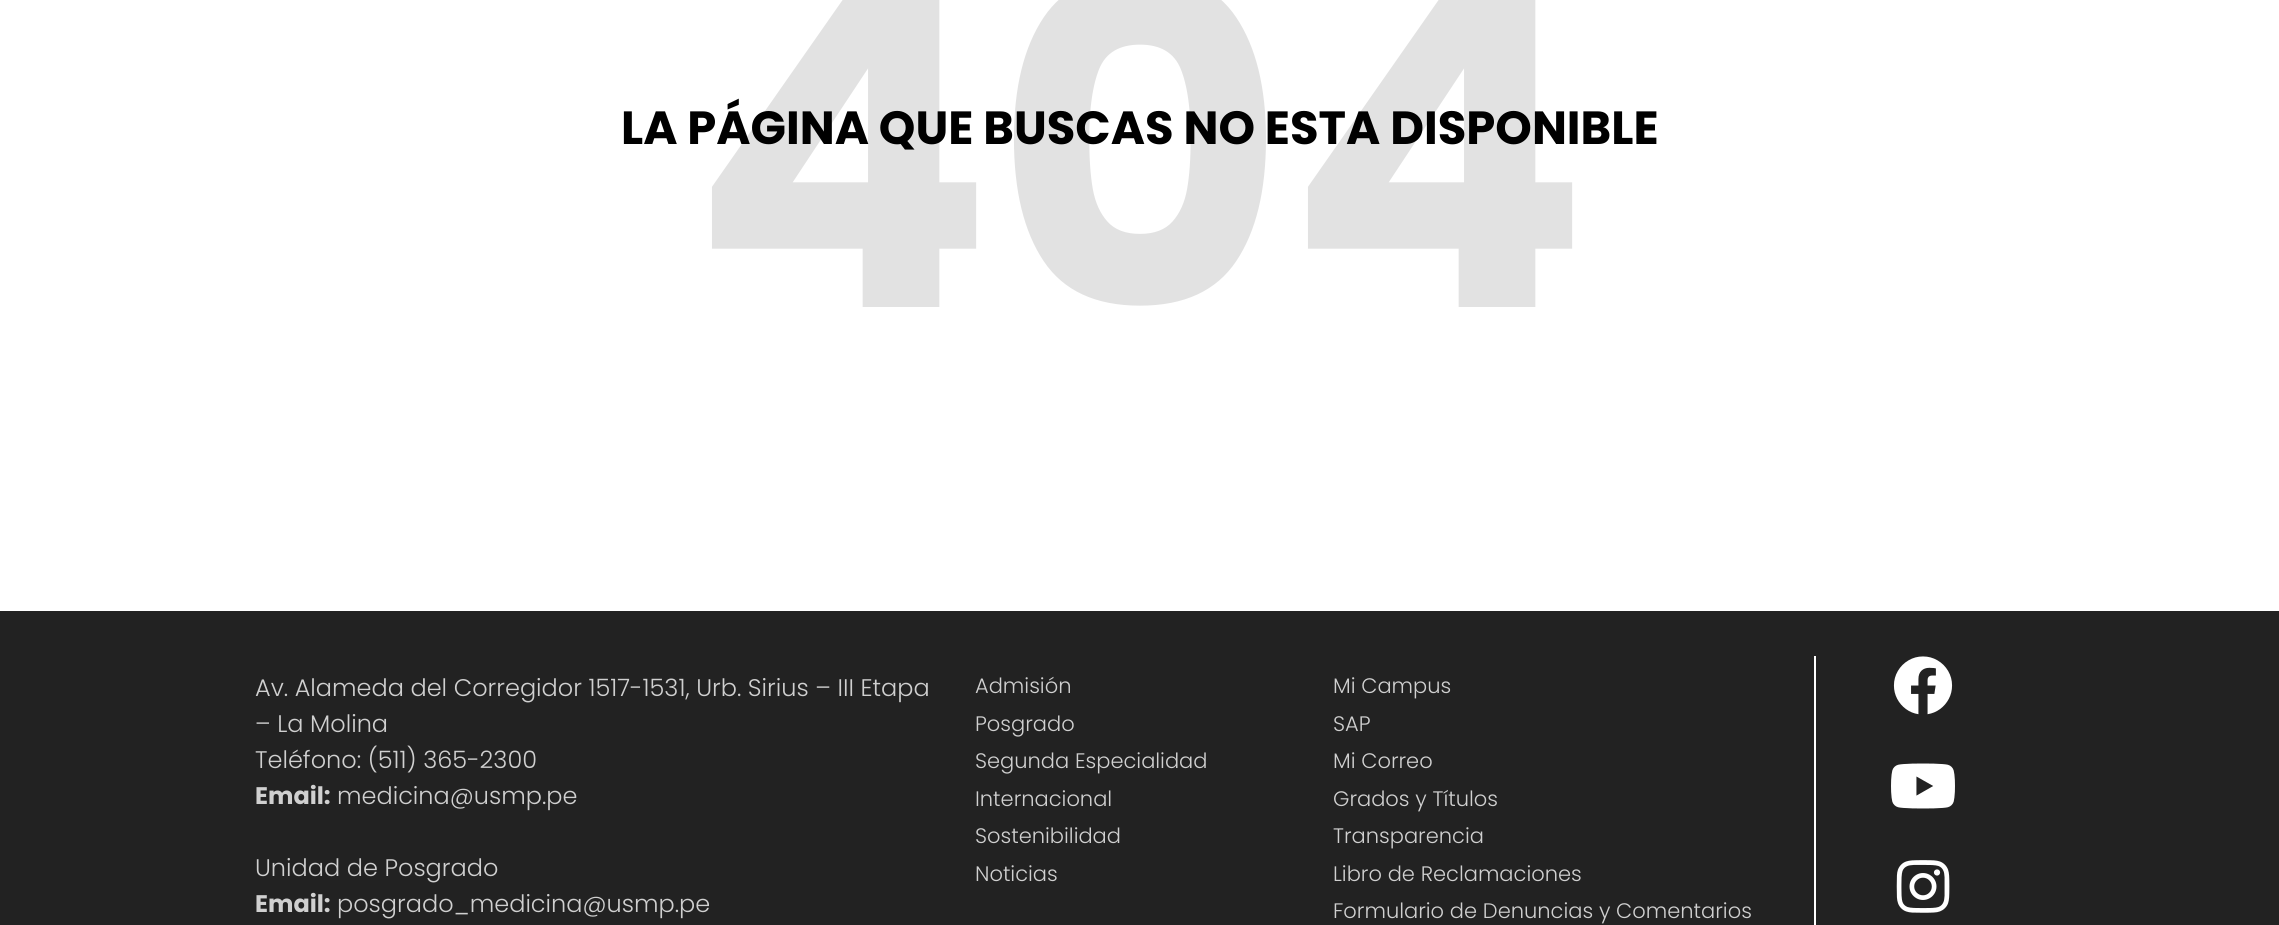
#include <cairo.h>
#include <math.h>
#include <stddef.h>

typedef struct { double x, y; const char *s; } line_t;

static void ink(cairo_t *ctx, unsigned color) {
    cairo_set_source_rgb(ctx, (color >> 16) / 255.0, (color >> 8 & 255) / 255.0, (color & 255) / 255.0);
}

static void paste(cairo_t *ctx, const char *path, double x, double y, double w, double h) {
    cairo_surface_t *image = cairo_image_surface_create_from_png(path);
    cairo_save(ctx);
    cairo_set_source_surface(ctx, image, x, y);
    cairo_rectangle(ctx, x, y, w, h);
    cairo_fill(ctx);
    cairo_restore(ctx);
    cairo_surface_destroy(image);
}

int main(void) {
    cairo_surface_t *surface = cairo_image_surface_create(CAIRO_FORMAT_RGB24, 2279, 925);
    cairo_t *ctx = cairo_create(surface);
    cairo_font_options_t *options = cairo_font_options_create();
    cairo_font_options_set_hint_metrics(options, CAIRO_HINT_METRICS_OFF);
    cairo_font_options_set_hint_style(options, CAIRO_HINT_STYLE_NONE);
    cairo_set_font_options(ctx, options);
    cairo_set_miter_limit(ctx, 4);
    ink(ctx, 0xFFFFFF);
    cairo_paint(ctx);
    cairo_select_font_face(ctx, "Poppins", CAIRO_FONT_SLANT_NORMAL, CAIRO_FONT_WEIGHT_BOLD);
    cairo_set_font_size(ctx, 448.5);
    ink(ctx, 0xE2E2E2);
    cairo_move_to(ctx, 690, 307);
    cairo_show_text(ctx, "404");
    cairo_set_font_size(ctx, 46.5);
    ink(ctx, 0x000000);
    cairo_move_to(ctx, 621, 144);
    cairo_show_text(ctx, "LA PÁGINA QUE BUSCAS NO ESTA DISPONIBLE");
    ink(ctx, 0x222222);
    cairo_rectangle(ctx, 0, 611, 2279, 314);
    cairo_fill(ctx);
    cairo_select_font_face(ctx, "Poppins Light", CAIRO_FONT_SLANT_NORMAL, CAIRO_FONT_WEIGHT_NORMAL);
    cairo_set_font_size(ctx, 24);
    ink(ctx, 0xD0D0D0);
    {
        static const line_t items[] = {
            {255, 696, "Av. Alameda del Corregidor 1517-1531, Urb. Sirius – III Etapa"},
            {255, 732, "– La Molina"},
            {255, 768, "Teléfono: (511) 365-2300"},
        };
        for (size_t i = 0; i < sizeof items / sizeof *items; i++) {
            cairo_move_to(ctx, items[i].x, items[i].y);
            cairo_show_text(ctx, items[i].s);
        }
    }
    cairo_select_font_face(ctx, "Poppins", CAIRO_FONT_SLANT_NORMAL, CAIRO_FONT_WEIGHT_BOLD);
    cairo_move_to(ctx, 255, 804);
    cairo_show_text(ctx, "Email:");
    cairo_select_font_face(ctx, "Poppins Light", CAIRO_FONT_SLANT_NORMAL, CAIRO_FONT_WEIGHT_NORMAL);
    cairo_move_to(ctx, 337, 804);
    cairo_show_text(ctx, "medicina@usmp.pe");
    cairo_move_to(ctx, 255, 876);
    cairo_show_text(ctx, "Unidad de Posgrado");
    cairo_select_font_face(ctx, "Poppins", CAIRO_FONT_SLANT_NORMAL, CAIRO_FONT_WEIGHT_BOLD);
    cairo_move_to(ctx, 255, 912);
    cairo_show_text(ctx, "Email:");
    cairo_select_font_face(ctx, "Poppins Light", CAIRO_FONT_SLANT_NORMAL, CAIRO_FONT_WEIGHT_NORMAL);
    cairo_move_to(ctx, 337, 912);
    cairo_show_text(ctx, "posgrado_medicina@usmp.pe");
    cairo_set_font_size(ctx, 21);
    {
        static const line_t items[] = {
            {975, 693, "Admisión"},
            {975, 731, "Posgrado"},
            {975, 768, "Segunda Especialidad"},
            {975, 806, "Internacional"},
            {975, 843, "Sostenibilidad"},
            {975, 881, "Noticias"},
        };
        for (size_t i = 0; i < sizeof items / sizeof *items; i++) {
            cairo_move_to(ctx, items[i].x, items[i].y);
            cairo_show_text(ctx, items[i].s);
        }
    }
    ink(ctx, 0xFFFFFF);
    cairo_rectangle(ctx, 1814, 656, 2, 269);
    cairo_fill(ctx);
    ink(ctx, 0xD0D0D0);
    {
        static const line_t items[] = {
            {1333, 693, "Mi Campus"},
            {1333, 731, "SAP"},
            {1333, 768, "Mi Correo"},
            {1333, 806, "Grados y Títulos"},
            {1333, 843, "Transparencia"},
            {1333, 881, "Libro de Reclamaciones"},
            {1333, 918, "Formulario de Denuncias y Comentarios"},
        };
        for (size_t i = 0; i < sizeof items / sizeof *items; i++) {
            cairo_move_to(ctx, items[i].x, items[i].y);
            cairo_show_text(ctx, items[i].s);
        }
    }
    paste(ctx, "media/1.png", 1893, 656, 60, 59);
    paste(ctx, "media/2.png", 1891, 763, 64, 46);
    paste(ctx, "media/3.png", 1896, 860, 54, 53);
    cairo_surface_write_to_png(surface, "image.png");
    cairo_font_options_destroy(options);
    cairo_destroy(ctx);
    cairo_surface_destroy(surface);
    return 0;
}
